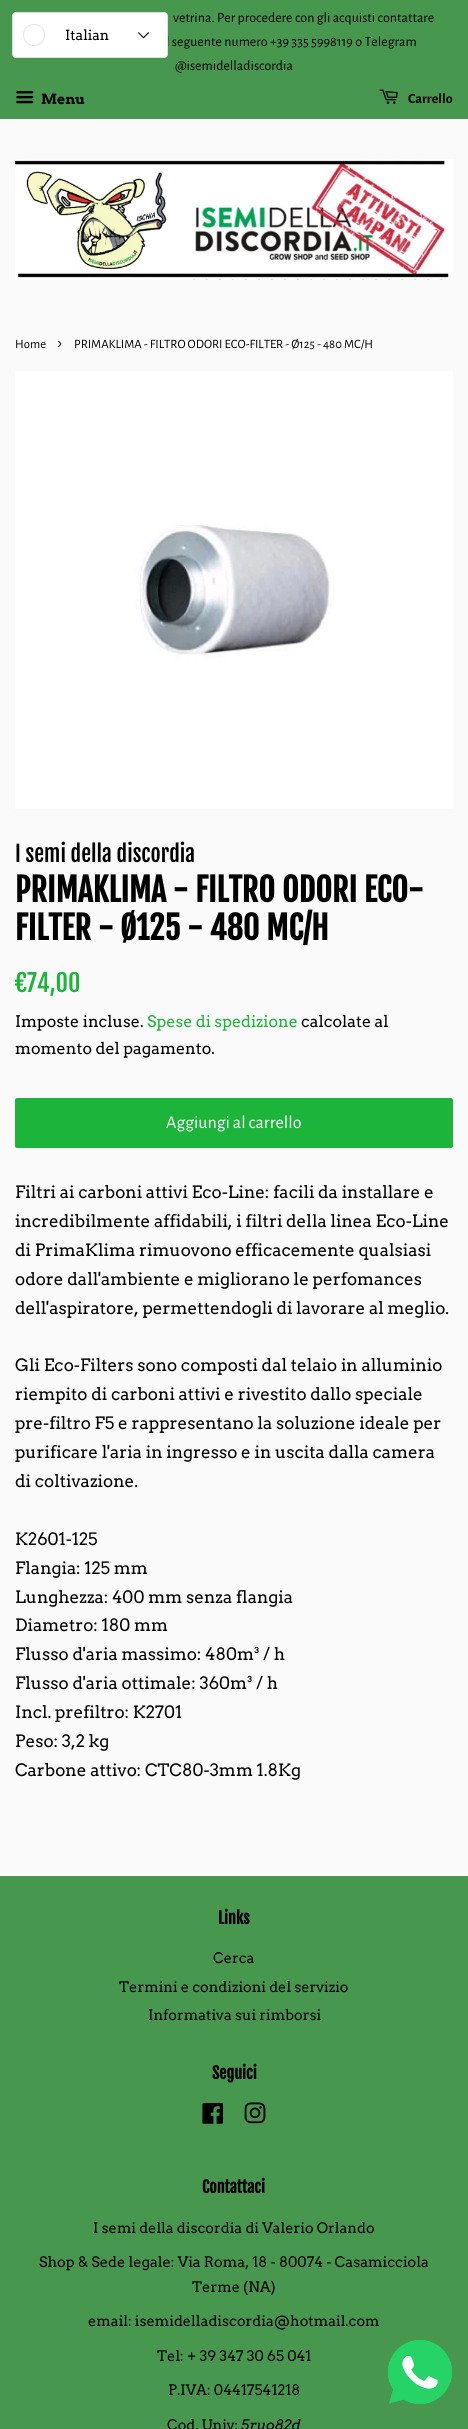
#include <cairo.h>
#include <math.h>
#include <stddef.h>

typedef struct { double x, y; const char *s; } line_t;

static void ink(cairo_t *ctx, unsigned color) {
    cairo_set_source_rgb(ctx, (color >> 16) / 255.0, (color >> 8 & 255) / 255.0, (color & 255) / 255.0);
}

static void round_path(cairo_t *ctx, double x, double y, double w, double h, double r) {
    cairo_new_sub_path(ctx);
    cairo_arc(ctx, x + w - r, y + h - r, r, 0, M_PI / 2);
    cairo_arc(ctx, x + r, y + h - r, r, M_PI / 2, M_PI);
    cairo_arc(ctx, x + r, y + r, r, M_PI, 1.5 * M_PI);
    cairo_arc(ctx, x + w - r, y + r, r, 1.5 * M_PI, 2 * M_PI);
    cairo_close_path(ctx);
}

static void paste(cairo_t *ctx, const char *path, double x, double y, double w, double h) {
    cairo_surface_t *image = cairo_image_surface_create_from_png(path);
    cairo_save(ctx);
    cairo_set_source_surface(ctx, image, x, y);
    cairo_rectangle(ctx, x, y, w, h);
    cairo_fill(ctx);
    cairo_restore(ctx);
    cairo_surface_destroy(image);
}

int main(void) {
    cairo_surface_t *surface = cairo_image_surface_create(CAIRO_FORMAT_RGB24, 468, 2429);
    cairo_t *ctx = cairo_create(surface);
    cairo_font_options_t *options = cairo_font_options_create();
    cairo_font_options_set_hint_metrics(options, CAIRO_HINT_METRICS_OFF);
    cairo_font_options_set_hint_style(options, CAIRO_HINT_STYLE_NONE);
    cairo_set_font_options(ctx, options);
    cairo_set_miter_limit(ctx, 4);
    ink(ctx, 0xFAFAFA);
    cairo_paint(ctx);
    ink(ctx, 0x47974F);
    cairo_rectangle(ctx, 0, 0, 468, 119);
    cairo_fill(ctx);
    cairo_select_font_face(ctx, "Alegreya Sans", CAIRO_FONT_SLANT_NORMAL, CAIRO_FONT_WEIGHT_NORMAL);
    cairo_set_font_size(ctx, 14);
    ink(ctx, 0x000000);
    {
        static const line_t items[] = {
            {173, 22, "vetrina. Per procedere con gli acquisti contattare"},
            {166, 46, "l seguente numero +39 335 5998119 o Telegram"},
            {175, 70, "@isemidelladiscordia"},
        };
        for (size_t i = 0; i < sizeof items / sizeof *items; i++) {
            cairo_move_to(ctx, items[i].x, items[i].y);
            cairo_show_text(ctx, items[i].s);
        }
    }
    paste(ctx, "media/1.png", 16, 91, 18, 13);
    cairo_select_font_face(ctx, "Arvo", CAIRO_FONT_SLANT_NORMAL, CAIRO_FONT_WEIGHT_BOLD);
    cairo_move_to(ctx, 41, 104);
    cairo_show_text(ctx, "Menu");
    paste(ctx, "media/2.png", 379, 89, 19, 15);
    cairo_select_font_face(ctx, "Alegreya Sans", CAIRO_FONT_SLANT_NORMAL, CAIRO_FONT_WEIGHT_BOLD);
    cairo_move_to(ctx, 408, 103);
    cairo_show_text(ctx, "Carrello");
    paste(ctx, "media/3.png", 15, 159, 438, 121);
    ink(ctx, 0xFFFFFF);
    round_path(ctx, 12.5, 12.5, 155, 45, 3.5);
    cairo_fill_preserve(ctx);
    ink(ctx, 0xE0E0E0);
    cairo_set_line_width(ctx, 1);
    cairo_stroke(ctx);
    cairo_arc(ctx, 34, 35, 10.5, 0, 2 * M_PI);
    ink(ctx, 0xE6E3E3);
    cairo_stroke(ctx);
    cairo_select_font_face(ctx, "Arvo", CAIRO_FONT_SLANT_NORMAL, CAIRO_FONT_WEIGHT_NORMAL);
    ink(ctx, 0x000000);
    cairo_move_to(ctx, 65, 40);
    cairo_show_text(ctx, "Italian");
    paste(ctx, "media/4.png", 138, 32, 11, 7);
    cairo_select_font_face(ctx, "Alegreya Sans", CAIRO_FONT_SLANT_NORMAL, CAIRO_FONT_WEIGHT_NORMAL);
    cairo_set_font_size(ctx, 12.75);
    cairo_move_to(ctx, 15, 348);
    cairo_show_text(ctx, "Home");
    cairo_set_font_size(ctx, 18);
    cairo_move_to(ctx, 58, 348);
    cairo_show_text(ctx, "›");
    cairo_set_font_size(ctx, 12.75);
    cairo_move_to(ctx, 74, 348);
    cairo_show_text(ctx, "PRIMAKLIMA - FILTRO ODORI ECO-FILTER - Ø125 - 480 MC/H");
    paste(ctx, "media/5.png", 15, 371, 438, 438);
    cairo_select_font_face(ctx, "Fjalla One", CAIRO_FONT_SLANT_NORMAL, CAIRO_FONT_WEIGHT_NORMAL);
    cairo_set_font_size(ctx, 22);
    cairo_move_to(ctx, 15, 862);
    cairo_show_text(ctx, "I semi della discordia");
    cairo_select_font_face(ctx, "Fjalla One", CAIRO_FONT_SLANT_NORMAL, CAIRO_FONT_WEIGHT_BOLD);
    cairo_set_font_size(ctx, 32);
    cairo_move_to(ctx, 15, 902);
    cairo_show_text(ctx, "PRIMAKLIMA - FILTRO ODORI ECO-");
    cairo_move_to(ctx, 15, 940);
    cairo_show_text(ctx, "FILTER - Ø125 - 480 MC/H");
    cairo_select_font_face(ctx, "Fjalla One", CAIRO_FONT_SLANT_NORMAL, CAIRO_FONT_WEIGHT_NORMAL);
    cairo_set_font_size(ctx, 24);
    ink(ctx, 0x1CB43A);
    cairo_move_to(ctx, 15, 992);
    cairo_show_text(ctx, "€74,00");
    cairo_select_font_face(ctx, "Arvo", CAIRO_FONT_SLANT_NORMAL, CAIRO_FONT_WEIGHT_NORMAL);
    cairo_set_font_size(ctx, 16);
    ink(ctx, 0x000000);
    cairo_move_to(ctx, 15, 1027);
    cairo_show_text(ctx, "Imposte incluse.");
    ink(ctx, 0x1CB43A);
    cairo_move_to(ctx, 147, 1027);
    cairo_show_text(ctx, "Spese di spedizione");
    ink(ctx, 0x000000);
    cairo_move_to(ctx, 301, 1027);
    cairo_show_text(ctx, "calcolate al");
    cairo_move_to(ctx, 15, 1054);
    cairo_show_text(ctx, "momento del pagamento.");
    ink(ctx, 0x1CB43A);
    round_path(ctx, 15, 1098, 438, 50, 2);
    cairo_fill(ctx);
    cairo_select_font_face(ctx, "Alegreya Sans", CAIRO_FONT_SLANT_NORMAL, CAIRO_FONT_WEIGHT_NORMAL);
    cairo_set_font_size(ctx, 18);
    ink(ctx, 0xFFFFFF);
    cairo_move_to(ctx, 166, 1128);
    cairo_show_text(ctx, "Aggiungi al carrello");
    cairo_select_font_face(ctx, "Arvo", CAIRO_FONT_SLANT_NORMAL, CAIRO_FONT_WEIGHT_NORMAL);
    cairo_set_font_size(ctx, 17);
    ink(ctx, 0x000000);
    {
        static const line_t items[] = {
            {15, 1198, "Filtri ai carboni attivi Eco-Line: facili da installare e"},
            {15, 1227, "incredibilmente affidabili, i filtri della linea Eco-Line"},
            {15, 1256, "di PrimaKlima rimuovono efficacemente qualsiasi"},
            {15, 1285, "odore dall'ambiente e migliorano le perfomances"},
            {15, 1314, "dell'aspiratore, permettendogli di lavorare al meglio."},
            {15, 1371, "Gli Eco-Filters sono composti dal telaio in alluminio"},
            {15, 1400, "riempito di carboni attivi e rivestito dallo speciale"},
            {15, 1429, "pre-filtro F5 e rappresentano la soluzione ideale per"},
            {15, 1458, "purificare l'aria in ingresso e in uscita dalla camera"},
            {15, 1487, "di coltivazione."},
            {15, 1545, "K2601-125"},
            {15, 1574, "Flangia: 125 mm"},
            {15, 1603, "Lunghezza: 400 mm senza flangia"},
            {15, 1631, "Diametro: 180 mm"},
            {15, 1660, "Flusso d'aria massimo: 480m³ / h"},
            {15, 1689, "Flusso d'aria ottimale: 360m³ / h"},
            {15, 1718, "Incl. prefiltro: K2701"},
            {15, 1747, "Peso: 3,2 kg"},
            {15, 1776, "Carbone attivo: CTC80-3mm 1.8Kg"},
        };
        for (size_t i = 0; i < sizeof items / sizeof *items; i++) {
            cairo_move_to(ctx, items[i].x, items[i].y);
            cairo_show_text(ctx, items[i].s);
        }
    }
    ink(ctx, 0x47974F);
    cairo_rectangle(ctx, 0, 1876, 468, 553);
    cairo_fill(ctx);
    cairo_select_font_face(ctx, "Fjalla One", CAIRO_FONT_SLANT_NORMAL, CAIRO_FONT_WEIGHT_BOLD);
    cairo_set_font_size(ctx, 16);
    ink(ctx, 0x000000);
    cairo_move_to(ctx, 218, 1924);
    cairo_show_text(ctx, "Links");
    cairo_select_font_face(ctx, "Arvo", CAIRO_FONT_SLANT_NORMAL, CAIRO_FONT_WEIGHT_NORMAL);
    cairo_set_font_size(ctx, 14.45);
    {
        static const line_t items[] = {
            {213, 1963, "Cerca"},
            {119, 1992, "Termini e condizioni del servizio"},
            {148, 2020, "Informativa sui rimborsi"},
        };
        for (size_t i = 0; i < sizeof items / sizeof *items; i++) {
            cairo_move_to(ctx, items[i].x, items[i].y);
            cairo_show_text(ctx, items[i].s);
        }
    }
    cairo_select_font_face(ctx, "Fjalla One", CAIRO_FONT_SLANT_NORMAL, CAIRO_FONT_WEIGHT_BOLD);
    cairo_set_font_size(ctx, 16);
    cairo_move_to(ctx, 212, 2079);
    cairo_show_text(ctx, "Seguici");
    paste(ctx, "media/6.png", 202, 2103, 21, 21);
    paste(ctx, "media/7.png", 244, 2102, 22, 22);
    cairo_move_to(ctx, 202, 2193);
    cairo_show_text(ctx, "Contattaci");
    cairo_select_font_face(ctx, "Arvo", CAIRO_FONT_SLANT_NORMAL, CAIRO_FONT_WEIGHT_NORMAL);
    cairo_set_font_size(ctx, 14.45);
    {
        static const line_t items[] = {
            {93, 2233, "I semi della discordia di Valerio Orlando"},
            {39, 2267, "Shop & Sede legale: Via Roma, 18 - 80074 - Casamicciola"},
            {192, 2292, "Terme (NA)"},
            {88, 2326, "email: isemidelladiscordia@hotmail.com"},
            {157, 2361, "Tel: + 39 347 30 65 041"},
            {168, 2395, "P.IVA: 04417541218"},
            {167, 2430, "Cod. Univ:"},
        };
        for (size_t i = 0; i < sizeof items / sizeof *items; i++) {
            cairo_move_to(ctx, items[i].x, items[i].y);
            cairo_show_text(ctx, items[i].s);
        }
    }
    cairo_select_font_face(ctx, "Arvo", CAIRO_FONT_SLANT_ITALIC, CAIRO_FONT_WEIGHT_NORMAL);
    cairo_move_to(ctx, 241, 2430);
    cairo_show_text(ctx, "5ruo82d");
    paste(ctx, "media/8.png", 388, 2340, 64, 64);
    paste(ctx, "media/9.png", 388, 2340, 64, 64);
    cairo_surface_write_to_png(surface, "image.png");
    cairo_font_options_destroy(options);
    cairo_destroy(ctx);
    cairo_surface_destroy(surface);
    return 0;
}
